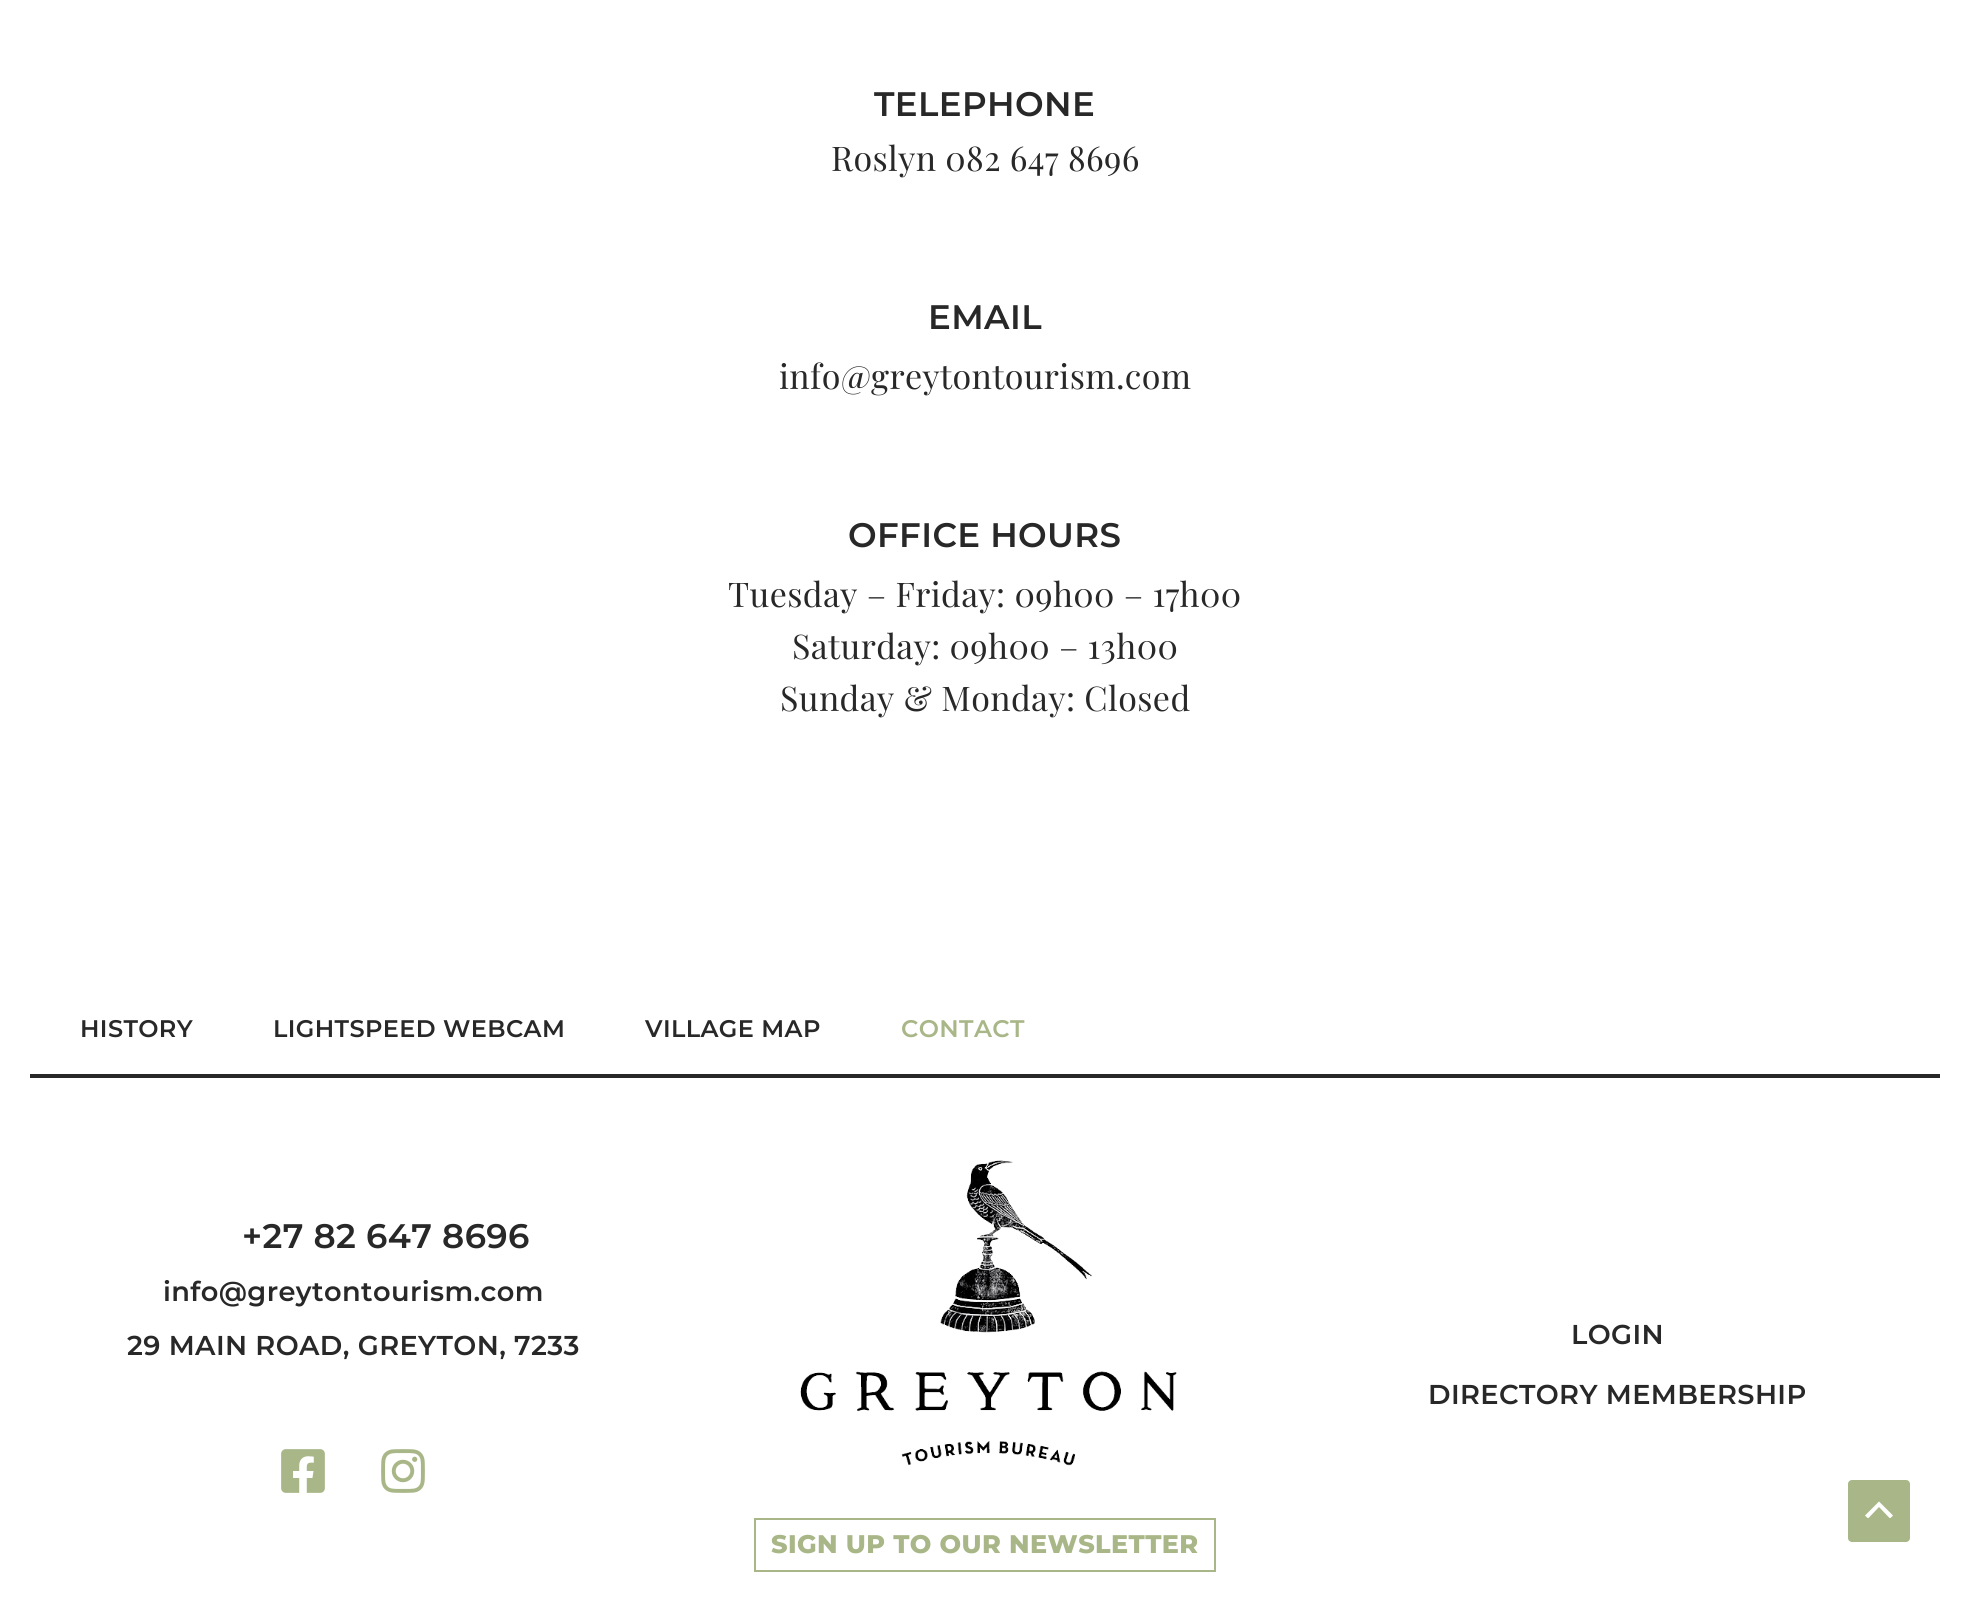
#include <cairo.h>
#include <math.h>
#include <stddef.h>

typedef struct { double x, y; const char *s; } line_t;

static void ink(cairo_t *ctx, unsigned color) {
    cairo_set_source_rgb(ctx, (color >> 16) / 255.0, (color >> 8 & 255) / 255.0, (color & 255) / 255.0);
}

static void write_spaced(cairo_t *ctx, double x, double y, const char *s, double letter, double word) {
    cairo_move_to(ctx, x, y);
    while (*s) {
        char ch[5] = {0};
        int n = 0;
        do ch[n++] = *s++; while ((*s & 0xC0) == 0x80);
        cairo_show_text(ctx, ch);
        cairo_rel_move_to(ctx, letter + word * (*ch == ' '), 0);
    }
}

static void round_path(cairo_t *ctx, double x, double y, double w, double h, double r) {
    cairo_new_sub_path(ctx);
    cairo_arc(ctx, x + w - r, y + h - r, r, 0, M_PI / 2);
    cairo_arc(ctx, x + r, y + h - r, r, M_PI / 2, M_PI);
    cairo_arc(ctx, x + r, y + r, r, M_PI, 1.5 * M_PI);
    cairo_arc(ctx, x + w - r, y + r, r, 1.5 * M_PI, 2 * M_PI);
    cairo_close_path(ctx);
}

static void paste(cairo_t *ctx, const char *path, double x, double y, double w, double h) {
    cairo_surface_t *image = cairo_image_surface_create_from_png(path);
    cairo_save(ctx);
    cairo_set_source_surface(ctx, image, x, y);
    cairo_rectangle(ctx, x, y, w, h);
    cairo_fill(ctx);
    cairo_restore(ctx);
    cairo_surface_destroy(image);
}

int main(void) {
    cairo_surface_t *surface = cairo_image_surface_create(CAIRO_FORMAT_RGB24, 1969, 1602);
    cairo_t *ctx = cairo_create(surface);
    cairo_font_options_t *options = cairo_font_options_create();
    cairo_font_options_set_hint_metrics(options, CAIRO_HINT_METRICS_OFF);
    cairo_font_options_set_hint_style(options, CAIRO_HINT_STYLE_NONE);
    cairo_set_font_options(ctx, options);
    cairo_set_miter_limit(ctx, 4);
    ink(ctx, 0xFFFFFF);
    cairo_paint(ctx);
    cairo_select_font_face(ctx, "Montserrat SemiBold", CAIRO_FONT_SLANT_NORMAL, CAIRO_FONT_WEIGHT_NORMAL);
    cairo_set_font_size(ctx, 34);
    ink(ctx, 0x282828);
    write_spaced(ctx, 874, 116, "TELEPHONE", 0.4, 0);
    cairo_select_font_face(ctx, "Playfair Display", CAIRO_FONT_SLANT_NORMAL, CAIRO_FONT_WEIGHT_NORMAL);
    write_spaced(ctx, 831, 171, "Roslyn 082 647 8696", 0.4, 0);
    cairo_select_font_face(ctx, "Montserrat SemiBold", CAIRO_FONT_SLANT_NORMAL, CAIRO_FONT_WEIGHT_NORMAL);
    write_spaced(ctx, 928, 329, "EMAIL", 0.4, 0);
    cairo_select_font_face(ctx, "Playfair Display", CAIRO_FONT_SLANT_NORMAL, CAIRO_FONT_WEIGHT_NORMAL);
    write_spaced(ctx, 779, 389, "info@greytontourism.com", 0.4, 0);
    cairo_select_font_face(ctx, "Montserrat SemiBold", CAIRO_FONT_SLANT_NORMAL, CAIRO_FONT_WEIGHT_NORMAL);
    write_spaced(ctx, 848, 547, "OFFICE HOURS", 0.4, 0);
    cairo_select_font_face(ctx, "Playfair Display", CAIRO_FONT_SLANT_NORMAL, CAIRO_FONT_WEIGHT_NORMAL);
    {
        static const line_t items[] = {
            {728, 607, "Tuesday – Friday: 09h00 – 17h00"},
            {792, 659, "Saturday: 09h00 – 13h00"},
            {780, 711, "Sunday & Monday: Closed"},
        };
        for (size_t i = 0; i < sizeof items / sizeof *items; i++) {
            write_spaced(ctx, items[i].x, items[i].y, items[i].s, 0.4, 0);
        }
    }
    cairo_select_font_face(ctx, "Montserrat SemiBold", CAIRO_FONT_SLANT_NORMAL, CAIRO_FONT_WEIGHT_NORMAL);
    cairo_set_font_size(ctx, 24);
    {
        static const line_t items[] = {
            {80, 1037, "HISTORY"},
            {273, 1037, "LIGHTSPEED WEBCAM"},
            {645, 1037, "VILLAGE MAP"},
        };
        for (size_t i = 0; i < sizeof items / sizeof *items; i++) {
            write_spaced(ctx, items[i].x, items[i].y, items[i].s, 0.4, 0);
        }
    }
    ink(ctx, 0xA9B788);
    write_spaced(ctx, 901, 1037, "CONTACT", 0.4, 0);
    ink(ctx, 0x282828);
    cairo_rectangle(ctx, 30, 1074, 1910, 4);
    cairo_fill(ctx);
    cairo_set_font_size(ctx, 34);
    write_spaced(ctx, 242, 1248, "+27 82 647 8696", 0.4, 0);
    cairo_set_font_size(ctx, 27.25);
    write_spaced(ctx, 163, 1301, "info@greytontourism.com", 0.4, 0);
    write_spaced(ctx, 127, 1355, "29 MAIN ROAD, GREYTON, 7233", 0.4, 0);
    paste(ctx, "media/1.png", 281, 1449, 44, 44);
    paste(ctx, "media/2.png", 381, 1449, 44, 44);
    write_spaced(ctx, 1571, 1344, "LOGIN", 0.4, 0);
    write_spaced(ctx, 1428, 1404, "DIRECTORY MEMBERSHIP", 0.4, 0);
    paste(ctx, "media/3.png", 800, 1160, 377, 306);
    cairo_rectangle(ctx, 755, 1519, 460, 52);
    ink(ctx, 0xA9B788);
    cairo_stroke(ctx);
    cairo_select_font_face(ctx, "Montserrat ExtraBold", CAIRO_FONT_SLANT_NORMAL, CAIRO_FONT_WEIGHT_NORMAL);
    cairo_set_font_size(ctx, 25.5);
    write_spaced(ctx, 771, 1553, "SIGN UP TO OUR NEWSLETTER", 0.4, 0);
    round_path(ctx, 1848, 1480, 62, 62, 4);
    cairo_fill(ctx);
    cairo_save(ctx);
    cairo_rectangle(ctx, 1854, 1500, 48, 18);
    cairo_clip(ctx);
    ink(ctx, 0xFFFFFF);
    cairo_new_path(ctx);
    cairo_move_to(ctx, 1893, 1515.5);
    cairo_line_to(ctx, 1879, 1501.5);
    cairo_line_to(ctx, 1865, 1515.5);
    cairo_line_to(ctx, 1868, 1518.5);
    cairo_line_to(ctx, 1879, 1507);
    cairo_line_to(ctx, 1890, 1518.5);
    cairo_close_path(ctx);
    cairo_fill(ctx);
    cairo_restore(ctx);
    cairo_surface_write_to_png(surface, "image.png");
    cairo_font_options_destroy(options);
    cairo_destroy(ctx);
    cairo_surface_destroy(surface);
    return 0;
}
